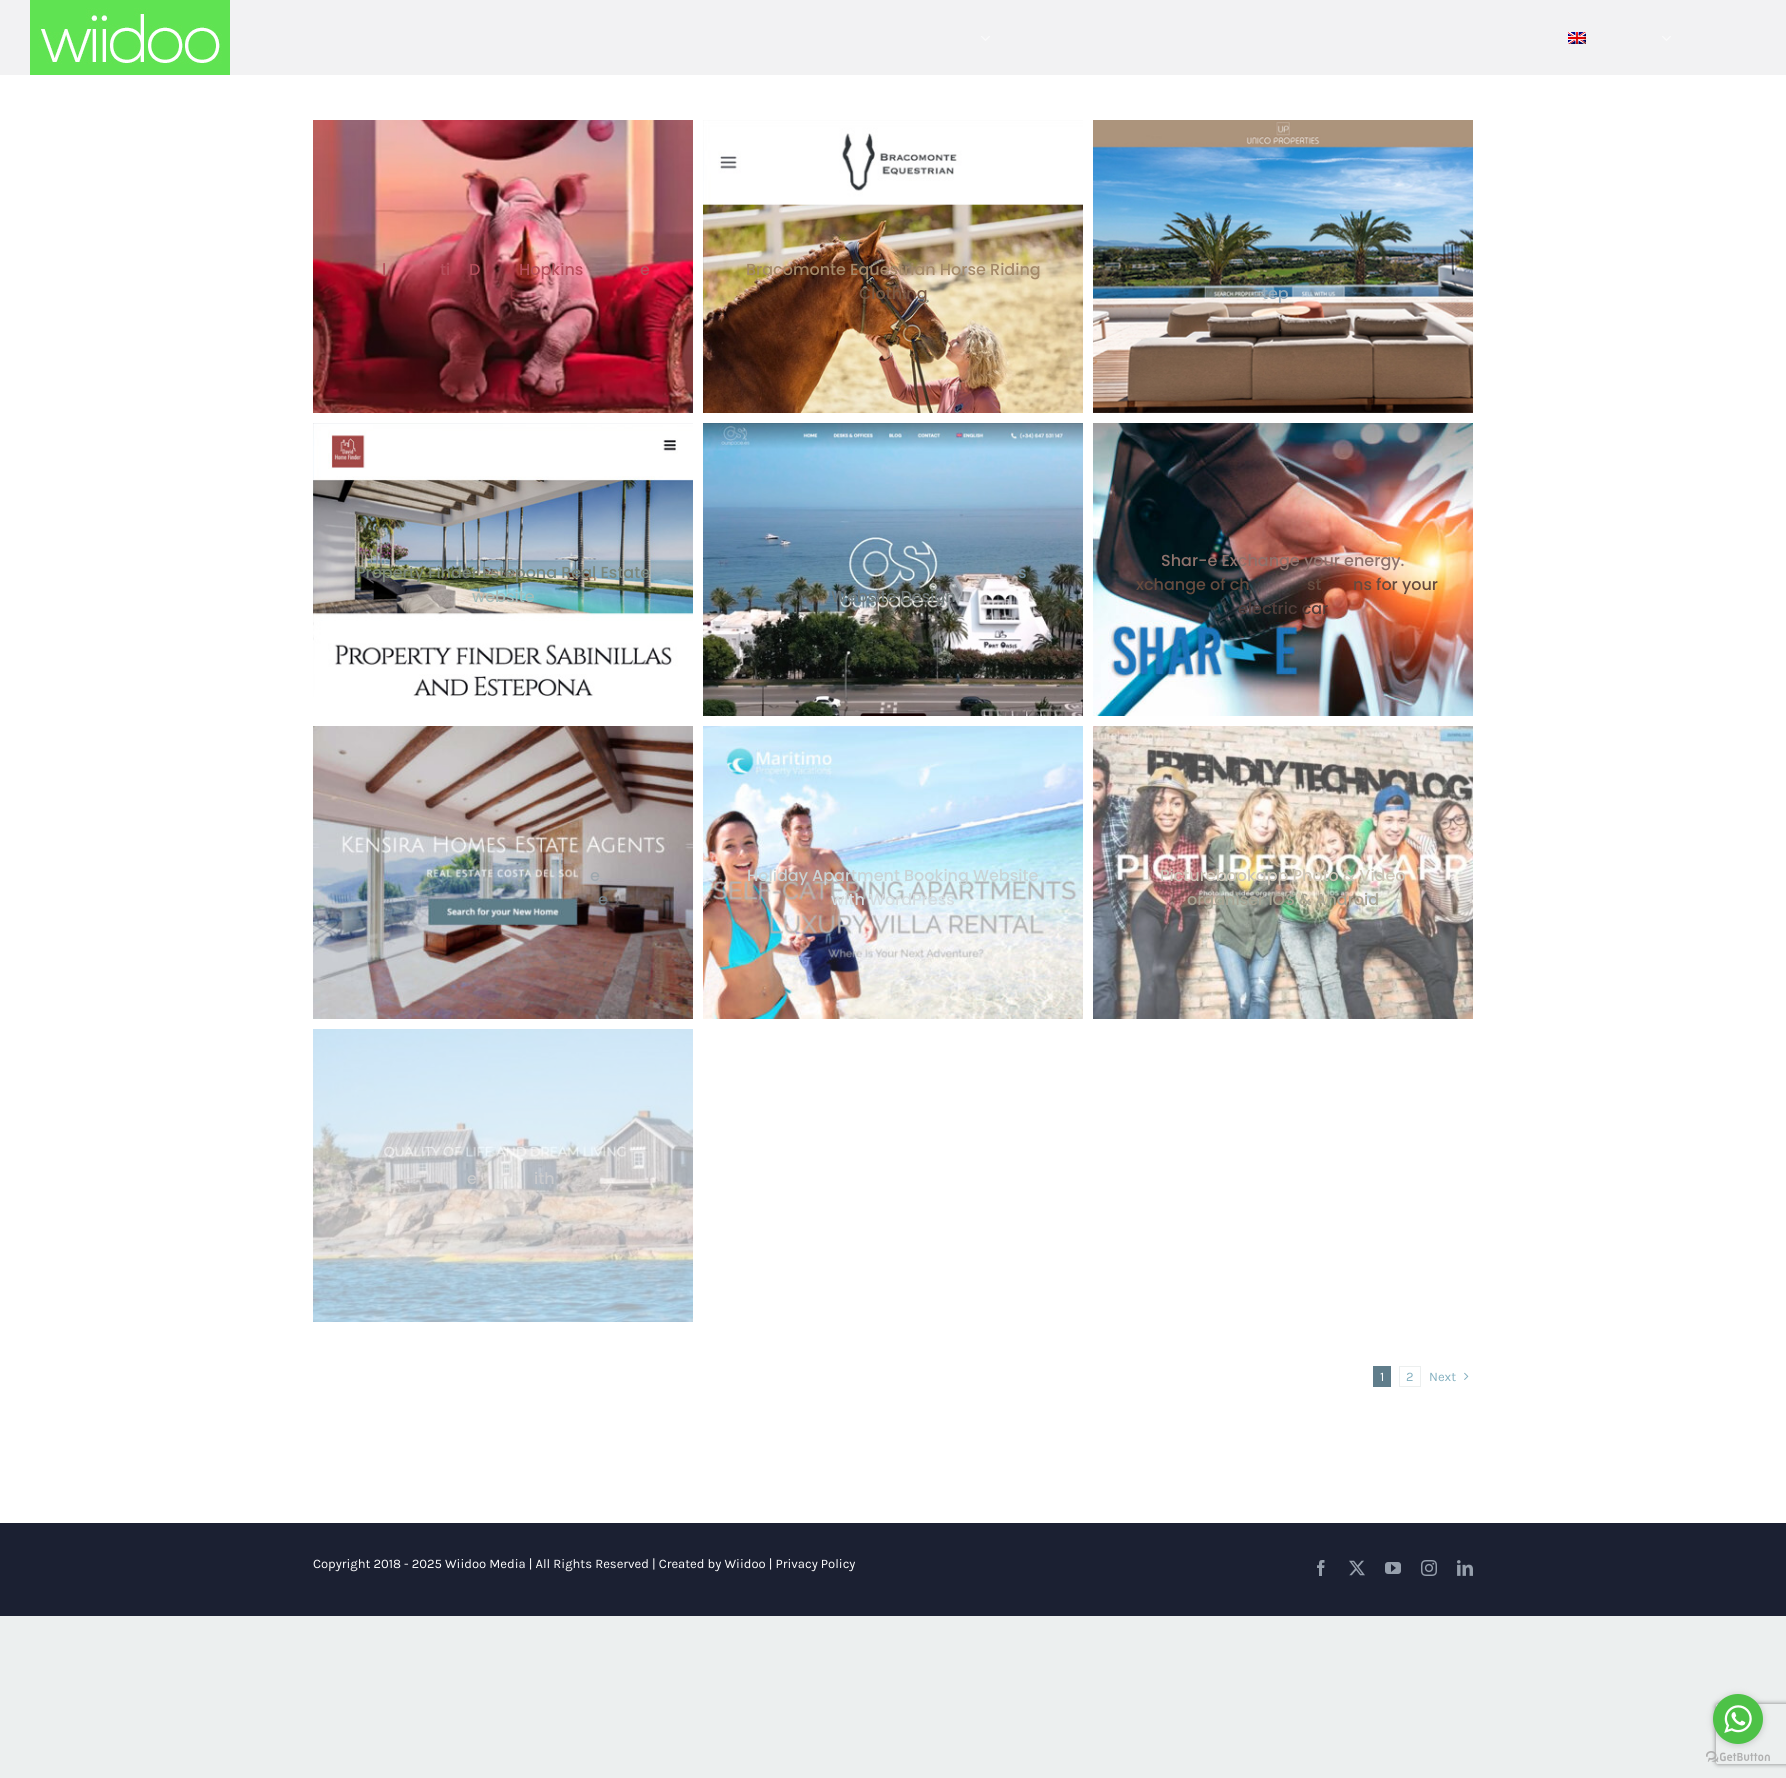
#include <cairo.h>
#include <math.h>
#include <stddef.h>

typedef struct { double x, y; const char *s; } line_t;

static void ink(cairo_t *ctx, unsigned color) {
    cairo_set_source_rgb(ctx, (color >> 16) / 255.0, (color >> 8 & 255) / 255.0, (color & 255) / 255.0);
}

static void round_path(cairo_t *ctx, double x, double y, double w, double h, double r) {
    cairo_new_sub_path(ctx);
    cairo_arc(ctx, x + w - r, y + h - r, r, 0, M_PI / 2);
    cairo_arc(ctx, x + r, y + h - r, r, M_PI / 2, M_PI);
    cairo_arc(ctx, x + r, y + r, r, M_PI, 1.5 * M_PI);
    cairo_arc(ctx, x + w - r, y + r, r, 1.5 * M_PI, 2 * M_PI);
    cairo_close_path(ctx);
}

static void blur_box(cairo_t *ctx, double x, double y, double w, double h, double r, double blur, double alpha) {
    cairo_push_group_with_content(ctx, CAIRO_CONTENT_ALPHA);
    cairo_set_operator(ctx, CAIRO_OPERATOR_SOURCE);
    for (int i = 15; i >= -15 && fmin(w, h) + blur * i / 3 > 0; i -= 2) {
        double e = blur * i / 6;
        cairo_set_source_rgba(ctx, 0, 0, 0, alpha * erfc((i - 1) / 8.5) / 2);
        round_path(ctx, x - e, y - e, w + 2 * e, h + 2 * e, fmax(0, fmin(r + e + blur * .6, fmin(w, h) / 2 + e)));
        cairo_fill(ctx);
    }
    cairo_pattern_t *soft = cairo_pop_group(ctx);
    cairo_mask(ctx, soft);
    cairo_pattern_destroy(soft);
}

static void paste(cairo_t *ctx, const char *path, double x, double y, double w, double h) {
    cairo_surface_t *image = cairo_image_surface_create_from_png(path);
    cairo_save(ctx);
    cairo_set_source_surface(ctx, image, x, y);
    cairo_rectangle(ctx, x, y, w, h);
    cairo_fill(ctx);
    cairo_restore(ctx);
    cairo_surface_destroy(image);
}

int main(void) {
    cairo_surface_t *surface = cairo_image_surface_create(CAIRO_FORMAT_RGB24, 1786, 1778);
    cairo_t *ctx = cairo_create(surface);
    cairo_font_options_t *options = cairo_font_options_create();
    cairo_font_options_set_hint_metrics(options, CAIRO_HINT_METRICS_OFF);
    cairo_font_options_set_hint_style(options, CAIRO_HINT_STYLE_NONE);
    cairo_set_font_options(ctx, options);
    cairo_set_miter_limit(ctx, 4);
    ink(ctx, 0xECEFEF);
    cairo_paint(ctx);
    ink(ctx, 0xFFFFFF);
    cairo_rectangle(ctx, 0, 75, 1786, 1448);
    cairo_fill(ctx);
    ink(ctx, 0xF2F2F3);
    cairo_rectangle(ctx, 0, 0, 1786, 75);
    cairo_fill(ctx);
    paste(ctx, "media/1.png", 30, 0, 200, 75);
    paste(ctx, "media/2.png", 981, 36, 9, 5);
    paste(ctx, "media/3.png", 1568, 32, 18, 12);
    paste(ctx, "media/2.png", 1662, 36, 9, 5);
    paste(ctx, "media/4.png", 313, 120, 380, 293);
    cairo_select_font_face(ctx, "Poppins Medium", CAIRO_FONT_SLANT_NORMAL, CAIRO_FONT_WEIGHT_NORMAL);
    cairo_set_font_size(ctx, 16);
    ink(ctx, 0xB74F5C);
    {
        static const line_t items[] = {
            {382, 275, "l"},
            {440, 275, "ti"},
            {469, 275, "D"},
            {519, 275, "Hopkins"},
            {640, 275, "e"},
        };
        for (size_t i = 0; i < sizeof items / sizeof *items; i++) {
            cairo_move_to(ctx, items[i].x, items[i].y);
            cairo_show_text(ctx, items[i].s);
        }
    }
    ink(ctx, 0x8F3842);
    cairo_move_to(ctx, 509, 299);
    cairo_show_text(ctx, "t");
    paste(ctx, "media/5.png", 703, 120, 380, 293);
    ink(ctx, 0xA48968);
    cairo_move_to(ctx, 746, 275);
    cairo_show_text(ctx, "Bracomonte Equestrian Horse Riding");
    ink(ctx, 0x7C5B45);
    cairo_move_to(ctx, 859, 299);
    cairo_show_text(ctx, "Clothing");
    paste(ctx, "media/6.png", 1093, 120, 380, 293);
    ink(ctx, 0x95ABBB);
    cairo_move_to(ctx, 1262, 299);
    cairo_show_text(ctx, "tep");
    paste(ctx, "media/7.png", 313, 423, 380, 274);
    ink(ctx, 0x7B877C);
    cairo_move_to(ctx, 356, 578);
    cairo_show_text(ctx, "Property Finder Estepona Real Estate");
    ink(ctx, 0xA5BDBB);
    cairo_move_to(ctx, 472, 602);
    cairo_show_text(ctx, "website");
    paste(ctx, "media/8.png", 703, 423, 380, 293);
    ink(ctx, 0x7592A4);
    cairo_move_to(ctx, 1018, 578);
    cairo_show_text(ctx, "s");
    ink(ctx, 0x707A7B);
    cairo_move_to(ctx, 831, 602);
    cairo_show_text(ctx, "Website Design");
    paste(ctx, "media/9.png", 1093, 423, 380, 293);
    ink(ctx, 0x8E726C);
    cairo_move_to(ctx, 1161, 566);
    cairo_show_text(ctx, "Shar-e Exchange your energy.");
    ink(ctx, 0x654A3E);
    {
        static const line_t items[] = {
            {1136, 590, "xchange of ch"},
            {1307, 590, "st"},
            {1353, 590, "ns for your"},
        };
        for (size_t i = 0; i < sizeof items / sizeof *items; i++) {
            cairo_move_to(ctx, items[i].x, items[i].y);
            cairo_show_text(ctx, items[i].s);
        }
    }
    ink(ctx, 0x513D3A);
    cairo_move_to(ctx, 1238, 614);
    cairo_show_text(ctx, "electric car");
    paste(ctx, "media/10.png", 313, 726, 380, 293);
    ink(ctx, 0x9EA7AD);
    cairo_move_to(ctx, 590, 881);
    cairo_show_text(ctx, "e");
    ink(ctx, 0x738089);
    cairo_move_to(ctx, 598, 905);
    cairo_show_text(ctx, "e");
    paste(ctx, "media/11.png", 703, 726, 380, 293);
    ink(ctx, 0xC9D3D6);
    cairo_move_to(ctx, 747, 881);
    cairo_show_text(ctx, "Holiday Apartment Booking Website");
    ink(ctx, 0xD5DCE0);
    cairo_move_to(ctx, 831, 905);
    cairo_show_text(ctx, "with WordPress");
    paste(ctx, "media/12.png", 1093, 726, 380, 293);
    ink(ctx, 0xCDC5B7);
    cairo_move_to(ctx, 1160, 881);
    cairo_show_text(ctx, "Picturebookapp Photo & Video");
    ink(ctx, 0xA8A494);
    cairo_move_to(ctx, 1187, 905);
    cairo_show_text(ctx, "organiser IOS & Android");
    paste(ctx, "media/13.png", 313, 1029, 380, 293);
    ink(ctx, 0xCBCBCD);
    cairo_move_to(ctx, 467, 1184);
    cairo_show_text(ctx, "e");
    cairo_move_to(ctx, 534, 1184);
    cairo_show_text(ctx, "ith");
    ink(ctx, 0x607D8B);
    cairo_rectangle(ctx, 1373, 1366, 18, 21);
    cairo_fill(ctx);
    cairo_select_font_face(ctx, "Karla", CAIRO_FONT_SLANT_NORMAL, CAIRO_FONT_WEIGHT_NORMAL);
    cairo_set_font_size(ctx, 13);
    ink(ctx, 0xFFFFFF);
    cairo_move_to(ctx, 1380, 1381);
    cairo_show_text(ctx, "1");
    cairo_rectangle(ctx, 1399.5, 1366.5, 21, 20);
    ink(ctx, 0xECEFEF);
    cairo_set_line_width(ctx, 1);
    cairo_stroke(ctx);
    ink(ctx, 0x83AFBF);
    cairo_move_to(ctx, 1406, 1381);
    cairo_show_text(ctx, "2");
    cairo_move_to(ctx, 1429, 1381);
    cairo_show_text(ctx, "Next");
    paste(ctx, "media/14.png", 1464, 1372, 5, 8);
    ink(ctx, 0x1B2032);
    cairo_rectangle(ctx, 0, 1523, 1786, 93);
    cairo_fill(ctx);
    ink(ctx, 0xFFFFFF);
    cairo_move_to(ctx, 313, 1568);
    cairo_show_text(ctx, "Copyright 2018 - 2025 Wiidoo Media | All Rights Reserved | Created by Wiidoo | Privacy Policy");
    paste(ctx, "media/15.png", 1317, 1560, 8, 16);
    paste(ctx, "media/16.png", 1349, 1560, 16, 16);
    paste(ctx, "media/17.png", 1385, 1562, 16, 12);
    paste(ctx, "media/18.png", 1421, 1560, 16, 16);
    paste(ctx, "media/19.png", 1457, 1560, 16, 16);
    cairo_save(ctx);
    cairo_set_fill_rule(ctx, CAIRO_FILL_RULE_EVEN_ODD);
    cairo_new_path(ctx);
    cairo_move_to(ctx, 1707, 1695);
    cairo_line_to(ctx, 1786, 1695);
    cairo_line_to(ctx, 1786, 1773);
    cairo_line_to(ctx, 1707, 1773);
    cairo_close_path(ctx);
    cairo_move_to(ctx, 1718, 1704);
    cairo_line_to(ctx, 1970, 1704);
    cairo_curve_to(ctx, 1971, 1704, 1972, 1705, 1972, 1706);
    cairo_line_to(ctx, 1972, 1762);
    cairo_curve_to(ctx, 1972, 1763, 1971, 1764, 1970, 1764);
    cairo_line_to(ctx, 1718, 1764);
    cairo_curve_to(ctx, 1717, 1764, 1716, 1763, 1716, 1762);
    cairo_line_to(ctx, 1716, 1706);
    cairo_curve_to(ctx, 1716, 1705, 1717, 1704, 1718, 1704);
    cairo_close_path(ctx);
    cairo_clip(ctx);
    ink(ctx, 0x808080);
    blur_box(ctx, 1716, 1704, 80, 60, 2, 2.5, 1);
    cairo_restore(ctx);
    paste(ctx, "media/21.png", 1706, 1751, 64, 11);
    ink(ctx, 0x888888);
    blur_box(ctx, 1713, 1695, 50, 50, 25, 3.5, 0.4);
    ink(ctx, 0x4DC247);
    cairo_arc(ctx, 1738, 1719, 25, 0, 2 * M_PI);
    cairo_fill(ctx);
    paste(ctx, "media/20.png", 1724, 1705, 28, 28);
    cairo_surface_write_to_png(surface, "image.png");
    cairo_font_options_destroy(options);
    cairo_destroy(ctx);
    cairo_surface_destroy(surface);
    return 0;
}
